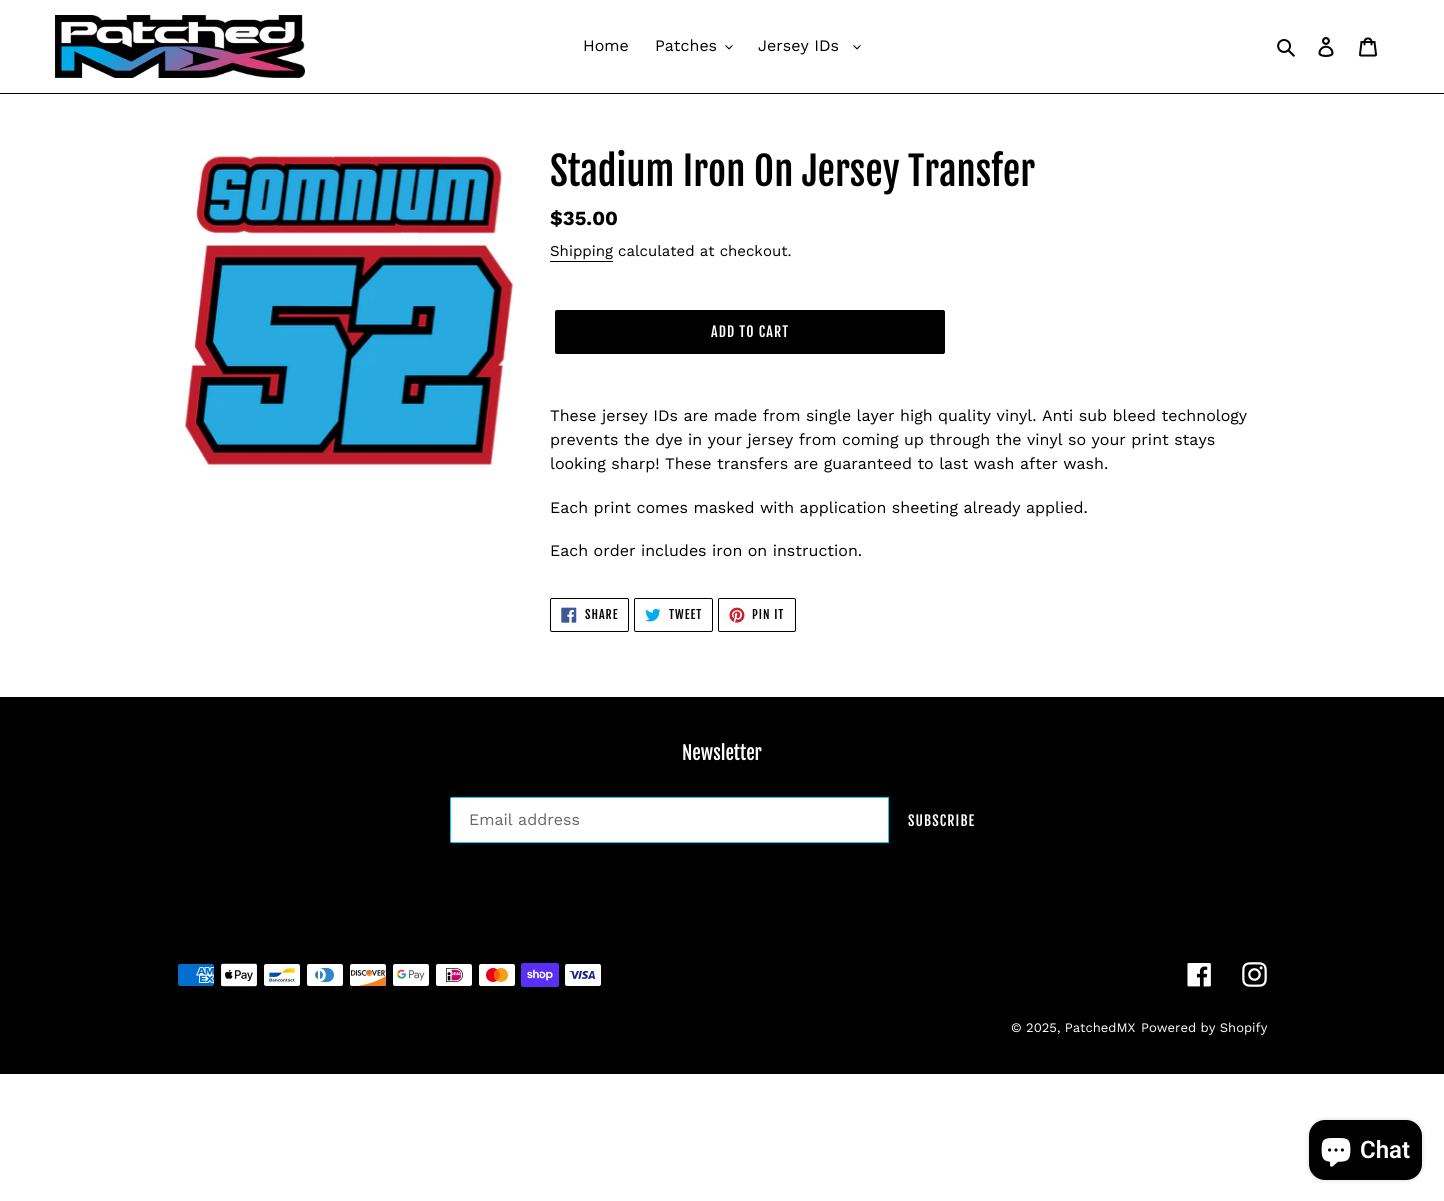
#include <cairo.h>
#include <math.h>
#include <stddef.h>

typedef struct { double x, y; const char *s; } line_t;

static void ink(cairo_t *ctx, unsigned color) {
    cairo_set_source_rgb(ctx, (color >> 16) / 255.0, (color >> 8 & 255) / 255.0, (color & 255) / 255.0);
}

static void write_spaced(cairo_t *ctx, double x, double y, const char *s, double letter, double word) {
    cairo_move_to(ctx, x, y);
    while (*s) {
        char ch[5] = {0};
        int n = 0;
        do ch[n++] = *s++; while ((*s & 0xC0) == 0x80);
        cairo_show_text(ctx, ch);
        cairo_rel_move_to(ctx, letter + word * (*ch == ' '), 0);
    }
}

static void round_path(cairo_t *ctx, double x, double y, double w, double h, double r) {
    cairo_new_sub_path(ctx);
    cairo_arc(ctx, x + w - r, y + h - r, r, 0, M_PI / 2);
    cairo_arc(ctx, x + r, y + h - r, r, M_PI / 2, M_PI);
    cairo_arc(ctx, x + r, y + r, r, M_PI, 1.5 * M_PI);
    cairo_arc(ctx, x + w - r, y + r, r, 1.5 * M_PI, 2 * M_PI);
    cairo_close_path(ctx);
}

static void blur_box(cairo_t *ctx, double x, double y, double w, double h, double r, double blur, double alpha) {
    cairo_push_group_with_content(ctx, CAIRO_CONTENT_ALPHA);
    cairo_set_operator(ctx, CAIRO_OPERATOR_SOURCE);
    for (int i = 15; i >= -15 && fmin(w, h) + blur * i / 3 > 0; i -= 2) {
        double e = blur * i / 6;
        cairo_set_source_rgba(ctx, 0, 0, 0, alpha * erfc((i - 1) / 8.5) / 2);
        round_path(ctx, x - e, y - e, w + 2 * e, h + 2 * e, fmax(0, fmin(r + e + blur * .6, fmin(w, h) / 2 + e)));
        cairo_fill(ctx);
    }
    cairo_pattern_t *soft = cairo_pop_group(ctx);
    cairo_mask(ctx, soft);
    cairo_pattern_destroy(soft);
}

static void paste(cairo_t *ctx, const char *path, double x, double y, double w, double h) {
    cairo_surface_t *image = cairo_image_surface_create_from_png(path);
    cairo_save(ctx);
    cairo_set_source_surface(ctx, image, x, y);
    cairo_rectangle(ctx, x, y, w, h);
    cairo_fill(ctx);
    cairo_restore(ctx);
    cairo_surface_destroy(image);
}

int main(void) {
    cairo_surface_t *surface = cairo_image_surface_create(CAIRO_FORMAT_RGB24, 1444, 1201);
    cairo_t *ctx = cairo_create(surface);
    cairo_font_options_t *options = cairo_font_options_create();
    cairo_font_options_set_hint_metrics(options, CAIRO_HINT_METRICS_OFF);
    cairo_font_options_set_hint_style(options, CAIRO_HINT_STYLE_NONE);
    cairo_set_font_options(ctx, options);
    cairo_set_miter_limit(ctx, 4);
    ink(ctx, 0xFFFFFF);
    cairo_paint(ctx);
    ink(ctx, 0x000000);
    cairo_rectangle(ctx, 0, 93, 1444, 1);
    cairo_fill(ctx);
    paste(ctx, "media/1.png", 55, 15, 250, 63);
    cairo_select_font_face(ctx, "Work Sans", CAIRO_FONT_SLANT_NORMAL, CAIRO_FONT_WEIGHT_NORMAL);
    cairo_set_font_size(ctx, 16);
    cairo_move_to(ctx, 583, 51);
    cairo_show_text(ctx, "Home");
    cairo_move_to(ctx, 655, 51);
    cairo_show_text(ctx, "Patches");
    paste(ctx, "media/2.png", 725, 45, 8, 5);
    cairo_move_to(ctx, 758, 51);
    cairo_show_text(ctx, "Jersey IDs");
    paste(ctx, "media/2.png", 853, 45, 8, 5);
    paste(ctx, "media/3.png", 1277, 39, 18, 18);
    paste(ctx, "media/4.png", 1318, 37, 16, 20);
    paste(ctx, "media/5.png", 1359, 37, 18, 20);
    paste(ctx, "media/6.png", 184, 155, 330, 313);
    cairo_select_font_face(ctx, "Fjalla One", CAIRO_FONT_SLANT_NORMAL, CAIRO_FONT_WEIGHT_NORMAL);
    cairo_set_font_size(ctx, 39);
    cairo_move_to(ctx, 550, 186);
    cairo_show_text(ctx, "Stadium Iron On Jersey Transfer");
    cairo_select_font_face(ctx, "Work Sans", CAIRO_FONT_SLANT_NORMAL, CAIRO_FONT_WEIGHT_BOLD);
    cairo_set_font_size(ctx, 20);
    cairo_move_to(ctx, 550, 225);
    cairo_show_text(ctx, "$35.00");
    cairo_select_font_face(ctx, "Work Sans", CAIRO_FONT_SLANT_NORMAL, CAIRO_FONT_WEIGHT_NORMAL);
    cairo_set_font_size(ctx, 15);
    cairo_move_to(ctx, 550, 256);
    cairo_show_text(ctx, "Shipping calculated at checkout.");
    cairo_rectangle(ctx, 550, 261, 63, 1);
    cairo_fill(ctx);
    round_path(ctx, 555, 310, 390, 44, 2);
    cairo_fill(ctx);
    cairo_select_font_face(ctx, "Fjalla One", CAIRO_FONT_SLANT_NORMAL, CAIRO_FONT_WEIGHT_NORMAL);
    cairo_set_font_size(ctx, 14);
    ink(ctx, 0xFFFFFF);
    write_spaced(ctx, 711, 337, "ADD TO CART", 1.1, 0);
    cairo_select_font_face(ctx, "Work Sans", CAIRO_FONT_SLANT_NORMAL, CAIRO_FONT_WEIGHT_NORMAL);
    cairo_set_font_size(ctx, 16);
    ink(ctx, 0x000000);
    {
        static const line_t items[] = {
            {550, 421, "These jersey IDs are made from single layer high quality vinyl. Anti sub bleed technology"},
            {550, 445, "prevents the dye in your jersey from coming up through the vinyl so your print stays"},
            {550, 469, "looking sharp! These transfers are guaranteed to last wash after wash."},
            {550, 513, "Each print comes masked with application sheeting already applied."},
            {550, 556, "Each order includes iron on instruction."},
        };
        for (size_t i = 0; i < sizeof items / sizeof *items; i++) {
            cairo_move_to(ctx, items[i].x, items[i].y);
            cairo_show_text(ctx, items[i].s);
        }
    }
    round_path(ctx, 550.5, 598.5, 78, 33, 1.5);
    cairo_set_line_width(ctx, 1);
    cairo_stroke(ctx);
    paste(ctx, "media/7.png", 561, 607, 16, 16);
    cairo_select_font_face(ctx, "Fjalla One", CAIRO_FONT_SLANT_NORMAL, CAIRO_FONT_WEIGHT_NORMAL);
    cairo_set_font_size(ctx, 12);
    write_spaced(ctx, 585, 619, "SHARE", 1, 0);
    round_path(ctx, 634.5, 598.5, 78, 33, 1.5);
    cairo_stroke(ctx);
    paste(ctx, "media/8.png", 645, 608, 16, 14);
    write_spaced(ctx, 669, 619, "TWEET", 1, 0);
    round_path(ctx, 718.5, 598.5, 77, 33, 1.5);
    cairo_stroke(ctx);
    paste(ctx, "media/9.png", 729, 607, 16, 16);
    write_spaced(ctx, 752, 619, "PIN IT", 1, 0);
    cairo_rectangle(ctx, 0, 697, 1444, 377);
    cairo_fill(ctx);
    cairo_set_font_size(ctx, 19);
    ink(ctx, 0xFFFFFF);
    cairo_move_to(ctx, 682, 760);
    cairo_show_text(ctx, "Newsletter");
    cairo_new_path(ctx);
    cairo_move_to(ctx, 452, 797.5);
    cairo_line_to(ctx, 888.5, 797.5);
    cairo_line_to(ctx, 888.5, 842.5);
    cairo_line_to(ctx, 452, 842.5);
    cairo_curve_to(ctx, 451, 842.5, 450.5, 842, 450.5, 841);
    cairo_line_to(ctx, 450.5, 799);
    cairo_curve_to(ctx, 450.5, 798, 451, 797.5, 452, 797.5);
    cairo_close_path(ctx);
    cairo_fill_preserve(ctx);
    ink(ctx, 0x00D1FF);
    cairo_stroke(ctx);
    cairo_select_font_face(ctx, "Work Sans", CAIRO_FONT_SLANT_NORMAL, CAIRO_FONT_WEIGHT_NORMAL);
    cairo_set_font_size(ctx, 16);
    ink(ctx, 0x666666);
    cairo_move_to(ctx, 469, 825);
    cairo_show_text(ctx, "Email address");
    cairo_select_font_face(ctx, "Fjalla One", CAIRO_FONT_SLANT_NORMAL, CAIRO_FONT_WEIGHT_NORMAL);
    cairo_set_font_size(ctx, 14);
    ink(ctx, 0xFFFFFF);
    write_spaced(ctx, 908, 826, "SUBSCRIBE", 1.1, 0);
    paste(ctx, "media/10.png", 178, 964, 36, 22);
    paste(ctx, "media/11.png", 221, 963, 36, 24);
    paste(ctx, "media/12.png", 264, 964, 36, 22);
    paste(ctx, "media/13.png", 307, 964, 36, 22);
    paste(ctx, "media/14.png", 350, 964, 37, 22);
    paste(ctx, "media/15.png", 393, 964, 36, 22);
    paste(ctx, "media/16.png", 436, 964, 36, 22);
    paste(ctx, "media/17.png", 479, 964, 36, 22);
    paste(ctx, "media/18.png", 521, 963, 38, 24);
    paste(ctx, "media/19.png", 565, 964, 36, 22);
    paste(ctx, "media/20.png", 1187, 963, 24, 24);
    paste(ctx, "media/21.png", 1242, 962, 25, 25);
    cairo_select_font_face(ctx, "Work Sans", CAIRO_FONT_SLANT_NORMAL, CAIRO_FONT_WEIGHT_NORMAL);
    cairo_set_font_size(ctx, 13);
    cairo_move_to(ctx, 1011, 1032);
    cairo_show_text(ctx, "© 2025, PatchedMX");
    cairo_move_to(ctx, 1141, 1032);
    cairo_show_text(ctx, "Powered by Shopify");
    ink(ctx, 0x000000);
    blur_box(ctx, 1309, 1120, 113, 60, 16, 2.5, 0.15);
    ink(ctx, 0x000000);
    round_path(ctx, 1309, 1120, 113, 60, 16);
    cairo_fill(ctx);
    paste(ctx, "media/22.png", 1321, 1138, 30, 29);
    cairo_select_font_face(ctx, "Roboto SemiBold", CAIRO_FONT_SLANT_NORMAL, CAIRO_FONT_WEIGHT_NORMAL);
    cairo_set_font_size(ctx, 24);
    ink(ctx, 0xFFFFFF);
    cairo_move_to(ctx, 1360, 1158);
    cairo_show_text(ctx, "Chat");
    cairo_surface_write_to_png(surface, "image.png");
    cairo_font_options_destroy(options);
    cairo_destroy(ctx);
    cairo_surface_destroy(surface);
    return 0;
}
